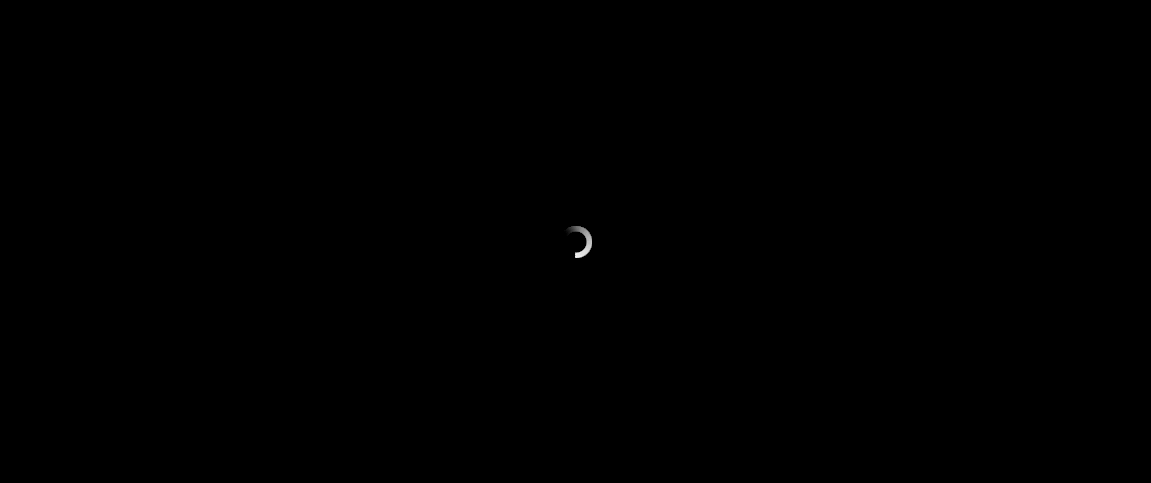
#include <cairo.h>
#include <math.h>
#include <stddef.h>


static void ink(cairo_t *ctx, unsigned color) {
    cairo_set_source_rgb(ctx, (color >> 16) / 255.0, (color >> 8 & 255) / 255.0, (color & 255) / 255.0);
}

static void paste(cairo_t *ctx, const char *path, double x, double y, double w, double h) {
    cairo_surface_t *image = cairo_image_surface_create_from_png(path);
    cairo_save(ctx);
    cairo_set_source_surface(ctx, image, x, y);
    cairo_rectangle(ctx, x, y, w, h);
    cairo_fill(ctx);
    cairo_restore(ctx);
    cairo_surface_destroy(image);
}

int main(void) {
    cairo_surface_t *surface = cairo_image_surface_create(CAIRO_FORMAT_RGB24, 1151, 483);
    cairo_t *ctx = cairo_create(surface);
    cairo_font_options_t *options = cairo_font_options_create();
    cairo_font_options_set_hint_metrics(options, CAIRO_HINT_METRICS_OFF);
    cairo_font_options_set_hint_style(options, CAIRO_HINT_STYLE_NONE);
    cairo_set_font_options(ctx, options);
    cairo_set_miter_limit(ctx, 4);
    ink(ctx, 0x000000);
    cairo_paint(ctx);
    paste(ctx, "media/1.png", 564, 226, 28, 32);
    cairo_surface_write_to_png(surface, "image.png");
    cairo_font_options_destroy(options);
    cairo_destroy(ctx);
    cairo_surface_destroy(surface);
    return 0;
}
